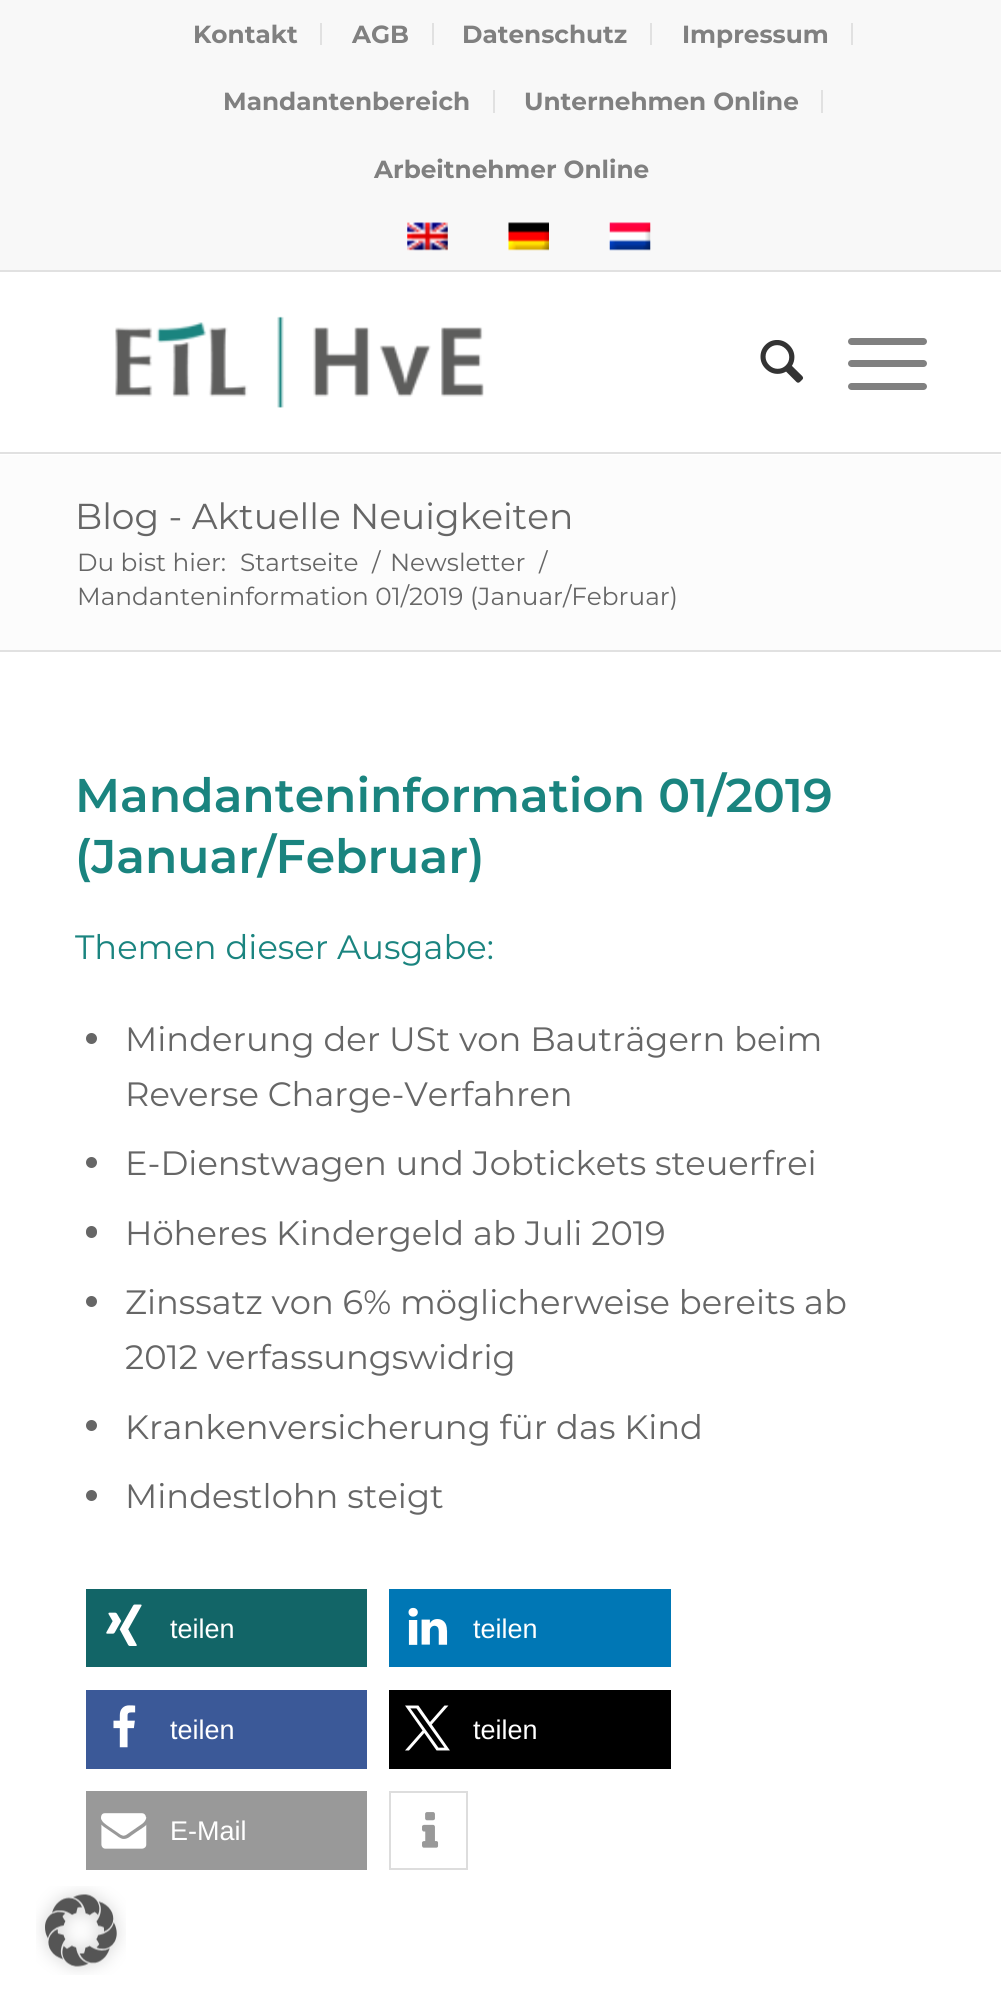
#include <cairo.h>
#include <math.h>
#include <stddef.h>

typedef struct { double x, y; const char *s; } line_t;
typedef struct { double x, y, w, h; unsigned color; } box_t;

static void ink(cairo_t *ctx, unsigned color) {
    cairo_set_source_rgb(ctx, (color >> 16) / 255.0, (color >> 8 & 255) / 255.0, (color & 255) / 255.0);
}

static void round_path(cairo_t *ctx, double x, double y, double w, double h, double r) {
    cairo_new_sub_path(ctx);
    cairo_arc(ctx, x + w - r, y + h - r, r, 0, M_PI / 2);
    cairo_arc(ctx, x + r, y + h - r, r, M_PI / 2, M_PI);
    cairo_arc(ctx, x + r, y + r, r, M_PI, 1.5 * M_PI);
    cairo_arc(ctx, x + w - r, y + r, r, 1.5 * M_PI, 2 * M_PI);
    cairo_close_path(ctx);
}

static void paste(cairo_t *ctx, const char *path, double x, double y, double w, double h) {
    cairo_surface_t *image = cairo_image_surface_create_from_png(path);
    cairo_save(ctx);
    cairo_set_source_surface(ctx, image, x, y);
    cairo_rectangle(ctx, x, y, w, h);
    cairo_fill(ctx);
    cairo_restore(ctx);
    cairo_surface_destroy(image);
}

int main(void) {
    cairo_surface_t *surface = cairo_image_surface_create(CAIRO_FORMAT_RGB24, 1001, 2011);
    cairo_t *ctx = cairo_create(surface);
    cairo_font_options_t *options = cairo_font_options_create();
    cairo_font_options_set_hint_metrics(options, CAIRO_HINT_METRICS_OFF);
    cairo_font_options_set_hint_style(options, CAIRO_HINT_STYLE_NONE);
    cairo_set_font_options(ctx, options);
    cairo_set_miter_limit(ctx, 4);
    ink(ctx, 0xFFFFFF);
    cairo_paint(ctx);
    {
        static const box_t items[] = {
            {0, 0, 1001, 270, 0xF8F8F8},
            {0, 270, 1001, 2, 0xE1E1E1},
            {320, 23, 2, 22, 0xE1E1E1},
        };
        for (size_t i = 0; i < sizeof items / sizeof *items; i++) {
            ink(ctx, items[i].color);
            cairo_rectangle(ctx, items[i].x, items[i].y, items[i].w, items[i].h);
            cairo_fill(ctx);
        }
    }
    cairo_select_font_face(ctx, "Montserrat", CAIRO_FONT_SLANT_NORMAL, CAIRO_FONT_WEIGHT_BOLD);
    cairo_set_font_size(ctx, 24.75);
    ink(ctx, 0x808080);
    cairo_move_to(ctx, 193, 43);
    cairo_show_text(ctx, "Kontakt");
    ink(ctx, 0xE1E1E1);
    cairo_rectangle(ctx, 432, 23, 2, 22);
    cairo_fill(ctx);
    ink(ctx, 0x808080);
    cairo_move_to(ctx, 352, 43);
    cairo_show_text(ctx, "AGB");
    ink(ctx, 0xE1E1E1);
    cairo_rectangle(ctx, 650, 23, 2, 22);
    cairo_fill(ctx);
    ink(ctx, 0x808080);
    cairo_move_to(ctx, 462, 43);
    cairo_show_text(ctx, "Datenschutz");
    ink(ctx, 0xE1E1E1);
    cairo_rectangle(ctx, 851, 23, 2, 22);
    cairo_fill(ctx);
    ink(ctx, 0x808080);
    cairo_move_to(ctx, 682, 43);
    cairo_show_text(ctx, "Impressum");
    ink(ctx, 0xE1E1E1);
    cairo_rectangle(ctx, 493, 90, 2, 23);
    cairo_fill(ctx);
    ink(ctx, 0x808080);
    cairo_move_to(ctx, 223, 110);
    cairo_show_text(ctx, "Mandantenbereich");
    ink(ctx, 0xE1E1E1);
    cairo_rectangle(ctx, 821, 90, 2, 23);
    cairo_fill(ctx);
    ink(ctx, 0x808080);
    cairo_move_to(ctx, 524, 110);
    cairo_show_text(ctx, "Unternehmen Online");
    cairo_move_to(ctx, 374, 178);
    cairo_show_text(ctx, "Arbeitnehmer Online");
    paste(ctx, "media/1.png", 407, 222, 41, 29);
    paste(ctx, "media/2.png", 508, 222, 41, 29);
    paste(ctx, "media/3.png", 609, 222, 42, 29);
    ink(ctx, 0xE1E1E1);
    cairo_rectangle(ctx, 0, 452, 1001, 2);
    cairo_fill(ctx);
    paste(ctx, "media/4.png", 115, 316, 369, 92);
    paste(ctx, "media/5.png", 760, 340, 44, 43);
    ink(ctx, 0x808080);
    round_path(ctx, 848, 360, 79, 7, 3.5);
    cairo_fill(ctx);
    round_path(ctx, 848, 338, 79, 7, 3.5);
    cairo_fill(ctx);
    round_path(ctx, 848, 383, 79, 7, 3.5);
    cairo_fill(ctx);
    ink(ctx, 0xFCFCFC);
    cairo_rectangle(ctx, 0, 455, 1001, 195);
    cairo_fill(ctx);
    cairo_select_font_face(ctx, "Montserrat", CAIRO_FONT_SLANT_NORMAL, CAIRO_FONT_WEIGHT_NORMAL);
    cairo_set_font_size(ctx, 36);
    ink(ctx, 0x666666);
    cairo_move_to(ctx, 75, 529);
    cairo_show_text(ctx, "Blog - Aktuelle Neuigkeiten");
    cairo_set_font_size(ctx, 24.75);
    {
        static const line_t items[] = {
            {77, 571, "Du bist hier:"},
            {240, 571, "Startseite"},
            {372, 571, "/"},
            {390, 571, "Newsletter"},
            {539, 571, "/"},
            {77, 605, "Mandanteninformation 01/2019 (Januar/Februar)"},
        };
        for (size_t i = 0; i < sizeof items / sizeof *items; i++) {
            cairo_move_to(ctx, items[i].x, items[i].y);
            cairo_show_text(ctx, items[i].s);
        }
    }
    ink(ctx, 0xE1E1E1);
    cairo_rectangle(ctx, 0, 650, 1001, 2);
    cairo_fill(ctx);
    cairo_select_font_face(ctx, "Montserrat SemiBold", CAIRO_FONT_SLANT_NORMAL, CAIRO_FONT_WEIGHT_NORMAL);
    cairo_set_font_size(ctx, 47.25);
    ink(ctx, 0x1A847F);
    cairo_move_to(ctx, 75, 812);
    cairo_show_text(ctx, "Mandanteninformation 01/2019");
    cairo_move_to(ctx, 75, 873);
    cairo_show_text(ctx, "(Januar/Februar)");
    cairo_select_font_face(ctx, "Montserrat", CAIRO_FONT_SLANT_NORMAL, CAIRO_FONT_WEIGHT_NORMAL);
    cairo_set_font_size(ctx, 33.75);
    cairo_move_to(ctx, 75, 959);
    cairo_show_text(ctx, "Themen dieser Ausgabe:");
    ink(ctx, 0x666666);
    cairo_new_path(ctx);
    cairo_arc(ctx, 91.5, 1038.5, 5.5, 0, 2 * M_PI);
    cairo_fill(ctx);
    cairo_move_to(ctx, 125, 1051);
    cairo_show_text(ctx, "Minderung der USt von Bauträgern beim");
    cairo_move_to(ctx, 125, 1106);
    cairo_show_text(ctx, "Reverse Charge-Verfahren");
    cairo_new_path(ctx);
    cairo_arc(ctx, 91.5, 1162.5, 5.5, 0, 2 * M_PI);
    cairo_fill(ctx);
    cairo_move_to(ctx, 125, 1175);
    cairo_show_text(ctx, "E-Dienstwagen und Jobtickets steuerfrei");
    round_path(ctx, 86, 1226, 11, 12, 5.5);
    cairo_fill(ctx);
    cairo_move_to(ctx, 125, 1245);
    cairo_show_text(ctx, "Höheres Kindergeld ab Juli 2019");
    cairo_new_path(ctx);
    cairo_arc(ctx, 91.5, 1301.5, 5.5, 0, 2 * M_PI);
    cairo_fill(ctx);
    cairo_move_to(ctx, 125, 1314);
    cairo_show_text(ctx, "Zinssatz von 6% möglicherweise bereits ab");
    cairo_move_to(ctx, 125, 1369);
    cairo_show_text(ctx, "2012 verfassungswidrig");
    cairo_new_path(ctx);
    cairo_arc(ctx, 91.5, 1425.5, 5.5, 0, 2 * M_PI);
    cairo_fill(ctx);
    cairo_move_to(ctx, 125, 1439);
    cairo_show_text(ctx, "Krankenversicherung für das Kind");
    cairo_new_path(ctx);
    cairo_arc(ctx, 91.5, 1495.5, 5.5, 0, 2 * M_PI);
    cairo_fill(ctx);
    cairo_move_to(ctx, 125, 1508);
    cairo_show_text(ctx, "Mindestlohn steigt");
    ink(ctx, 0x126567);
    cairo_rectangle(ctx, 86, 1589, 281, 78);
    cairo_fill(ctx);
    paste(ctx, "media/6.png", 106, 1604, 36, 42);
    cairo_select_font_face(ctx, "Liberation Sans", CAIRO_FONT_SLANT_NORMAL, CAIRO_FONT_WEIGHT_NORMAL);
    cairo_set_font_size(ctx, 27);
    ink(ctx, 0xFFFFFF);
    cairo_move_to(ctx, 170, 1638);
    cairo_show_text(ctx, "teilen");
    ink(ctx, 0x0077B5);
    cairo_rectangle(ctx, 389, 1589, 282, 78);
    cairo_fill(ctx);
    paste(ctx, "media/7.png", 408, 1607, 40, 38);
    ink(ctx, 0xFFFFFF);
    cairo_move_to(ctx, 473, 1638);
    cairo_show_text(ctx, "teilen");
    ink(ctx, 0x3B5998);
    cairo_rectangle(ctx, 86, 1690, 281, 79);
    cairo_fill(ctx);
    paste(ctx, "media/8.png", 113, 1705, 23, 43);
    ink(ctx, 0xFFFFFF);
    cairo_move_to(ctx, 170, 1739);
    cairo_show_text(ctx, "teilen");
    ink(ctx, 0x000000);
    cairo_rectangle(ctx, 389, 1690, 282, 79);
    cairo_fill(ctx);
    paste(ctx, "media/9.png", 405, 1705, 45, 46);
    ink(ctx, 0xFFFFFF);
    cairo_move_to(ctx, 473, 1739);
    cairo_show_text(ctx, "teilen");
    ink(ctx, 0x999999);
    cairo_rectangle(ctx, 86, 1791, 281, 79);
    cairo_fill(ctx);
    paste(ctx, "media/10.png", 101, 1813, 46, 36);
    ink(ctx, 0xFFFFFF);
    cairo_move_to(ctx, 170, 1840);
    cairo_show_text(ctx, "E-Mail");
    cairo_rectangle(ctx, 390, 1792, 77, 77);
    ink(ctx, 0xDDDDDD);
    cairo_stroke(ctx);
    paste(ctx, "media/11.png", 422, 1812, 17, 36);
    paste(ctx, "media/12.png", 36, 1886, 90, 89);
    cairo_surface_write_to_png(surface, "image.png");
    cairo_font_options_destroy(options);
    cairo_destroy(ctx);
    cairo_surface_destroy(surface);
    return 0;
}
